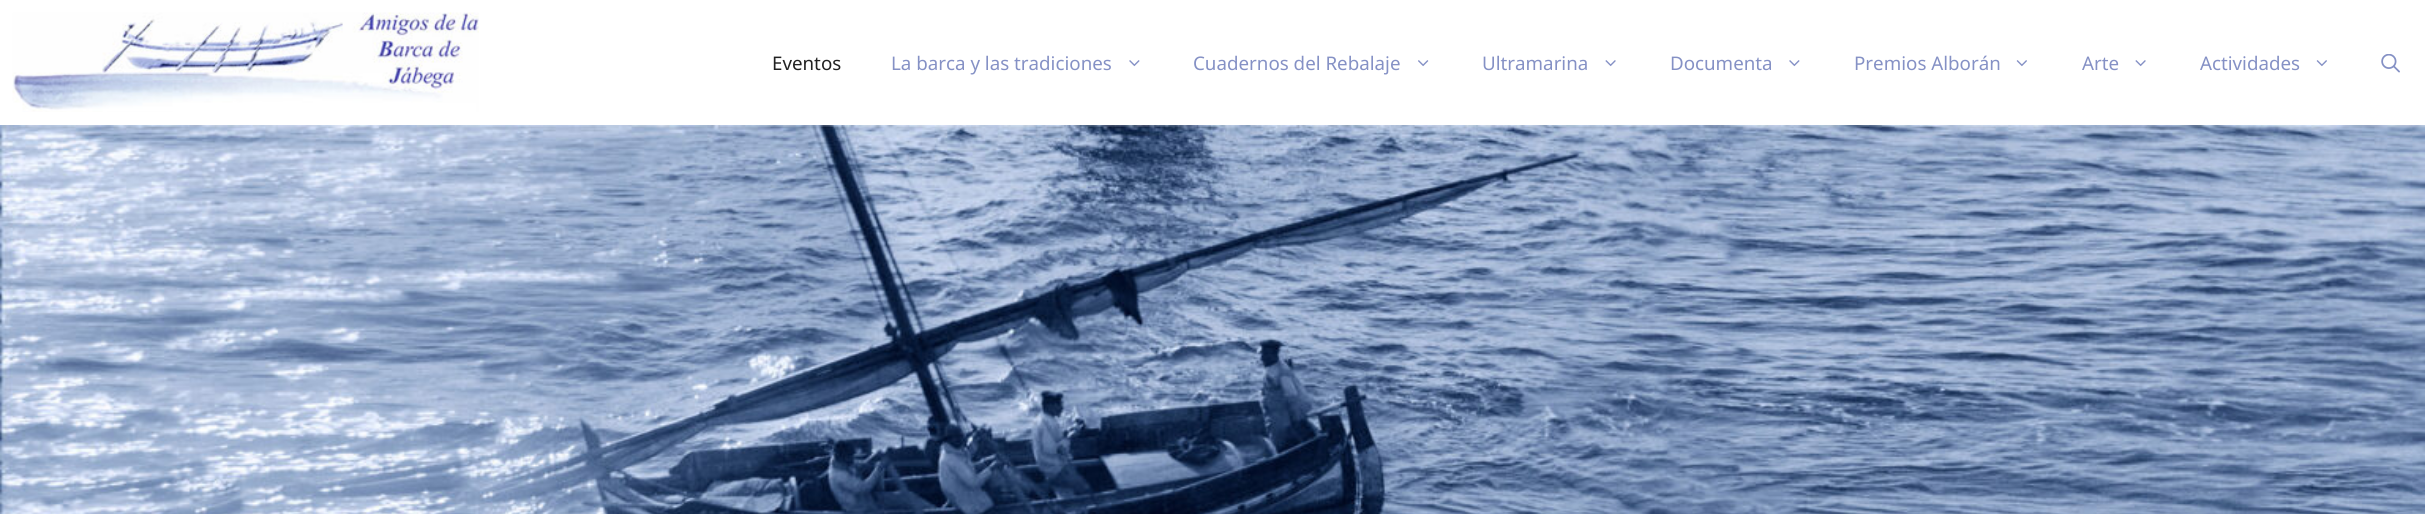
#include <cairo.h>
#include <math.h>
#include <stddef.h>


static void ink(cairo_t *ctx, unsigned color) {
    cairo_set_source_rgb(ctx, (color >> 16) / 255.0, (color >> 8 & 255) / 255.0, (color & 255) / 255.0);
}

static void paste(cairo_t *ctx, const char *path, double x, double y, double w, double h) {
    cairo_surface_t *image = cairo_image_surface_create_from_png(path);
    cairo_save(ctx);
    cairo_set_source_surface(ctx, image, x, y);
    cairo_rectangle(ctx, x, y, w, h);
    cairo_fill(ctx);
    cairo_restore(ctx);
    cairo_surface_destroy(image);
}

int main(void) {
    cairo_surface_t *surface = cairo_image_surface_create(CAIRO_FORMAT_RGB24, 2425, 514);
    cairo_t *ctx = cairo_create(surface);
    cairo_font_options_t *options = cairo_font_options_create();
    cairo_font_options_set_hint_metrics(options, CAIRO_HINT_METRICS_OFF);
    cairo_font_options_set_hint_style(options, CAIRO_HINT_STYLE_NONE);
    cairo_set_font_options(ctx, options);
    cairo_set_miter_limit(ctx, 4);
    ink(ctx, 0xFFFFFF);
    cairo_paint(ctx);
    paste(ctx, "media/1.png", 12, 12, 467, 100);
    cairo_select_font_face(ctx, "Noto Sans", CAIRO_FONT_SLANT_NORMAL, CAIRO_FONT_WEIGHT_NORMAL);
    cairo_set_font_size(ctx, 18.75);
    ink(ctx, 0x222222);
    cairo_move_to(ctx, 772, 70);
    cairo_show_text(ctx, "Eventos");
    ink(ctx, 0x8591C5);
    cairo_move_to(ctx, 891, 70);
    cairo_show_text(ctx, "La barca y las tradiciones");
    paste(ctx, "media/2.png", 1129, 60, 11, 7);
    cairo_move_to(ctx, 1193, 70);
    cairo_show_text(ctx, "Cuadernos del Rebalaje");
    paste(ctx, "media/3.png", 1418, 60, 11, 7);
    cairo_move_to(ctx, 1482, 70);
    cairo_show_text(ctx, "Ultramarina");
    paste(ctx, "media/4.png", 1605, 60, 11, 7);
    cairo_move_to(ctx, 1670, 70);
    cairo_show_text(ctx, "Documenta");
    paste(ctx, "media/2.png", 1789, 60, 11, 7);
    cairo_move_to(ctx, 1854, 70);
    cairo_show_text(ctx, "Premios Alborán");
    paste(ctx, "media/5.png", 2016, 60, 11, 7);
    cairo_move_to(ctx, 2082, 70);
    cairo_show_text(ctx, "Arte");
    paste(ctx, "media/4.png", 2135, 60, 11, 7);
    cairo_move_to(ctx, 2200, 70);
    cairo_show_text(ctx, "Actividades");
    paste(ctx, "media/5.png", 2316, 60, 11, 7);
    paste(ctx, "media/6.png", 2381, 54, 19, 19);
    paste(ctx, "media/7.png", 0, 125, 2425, 389);
    cairo_surface_write_to_png(surface, "image.png");
    cairo_font_options_destroy(options);
    cairo_destroy(ctx);
    cairo_surface_destroy(surface);
    return 0;
}
